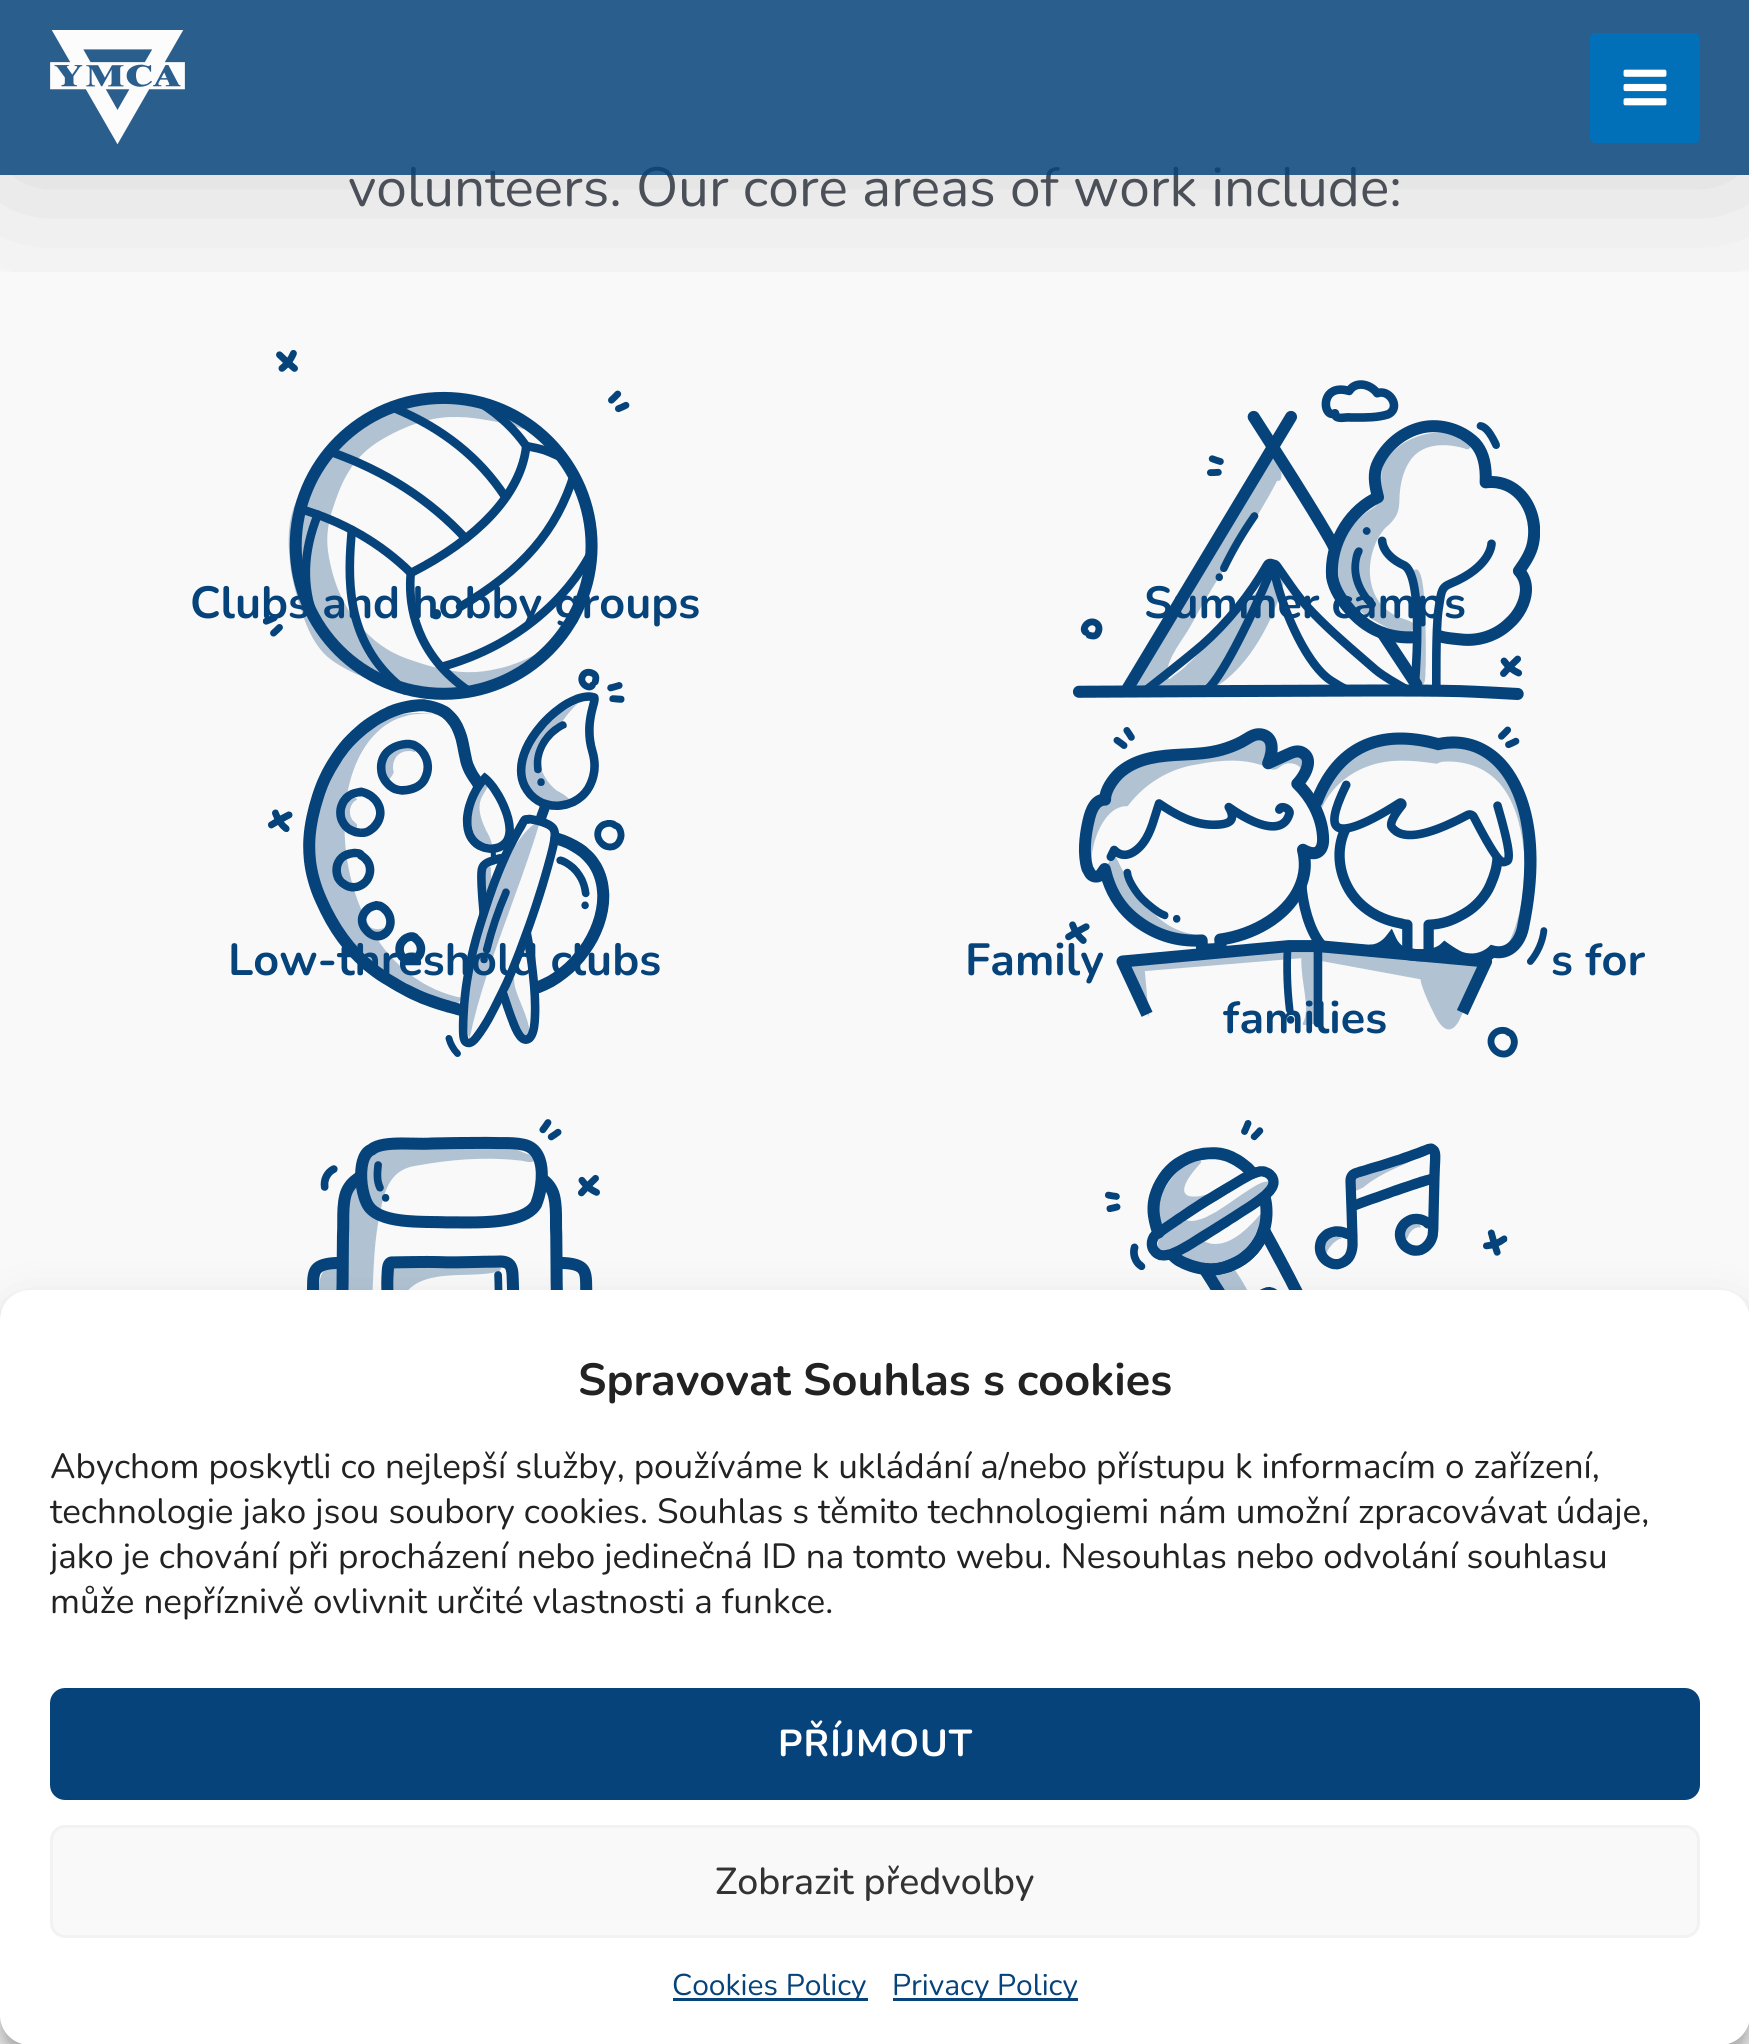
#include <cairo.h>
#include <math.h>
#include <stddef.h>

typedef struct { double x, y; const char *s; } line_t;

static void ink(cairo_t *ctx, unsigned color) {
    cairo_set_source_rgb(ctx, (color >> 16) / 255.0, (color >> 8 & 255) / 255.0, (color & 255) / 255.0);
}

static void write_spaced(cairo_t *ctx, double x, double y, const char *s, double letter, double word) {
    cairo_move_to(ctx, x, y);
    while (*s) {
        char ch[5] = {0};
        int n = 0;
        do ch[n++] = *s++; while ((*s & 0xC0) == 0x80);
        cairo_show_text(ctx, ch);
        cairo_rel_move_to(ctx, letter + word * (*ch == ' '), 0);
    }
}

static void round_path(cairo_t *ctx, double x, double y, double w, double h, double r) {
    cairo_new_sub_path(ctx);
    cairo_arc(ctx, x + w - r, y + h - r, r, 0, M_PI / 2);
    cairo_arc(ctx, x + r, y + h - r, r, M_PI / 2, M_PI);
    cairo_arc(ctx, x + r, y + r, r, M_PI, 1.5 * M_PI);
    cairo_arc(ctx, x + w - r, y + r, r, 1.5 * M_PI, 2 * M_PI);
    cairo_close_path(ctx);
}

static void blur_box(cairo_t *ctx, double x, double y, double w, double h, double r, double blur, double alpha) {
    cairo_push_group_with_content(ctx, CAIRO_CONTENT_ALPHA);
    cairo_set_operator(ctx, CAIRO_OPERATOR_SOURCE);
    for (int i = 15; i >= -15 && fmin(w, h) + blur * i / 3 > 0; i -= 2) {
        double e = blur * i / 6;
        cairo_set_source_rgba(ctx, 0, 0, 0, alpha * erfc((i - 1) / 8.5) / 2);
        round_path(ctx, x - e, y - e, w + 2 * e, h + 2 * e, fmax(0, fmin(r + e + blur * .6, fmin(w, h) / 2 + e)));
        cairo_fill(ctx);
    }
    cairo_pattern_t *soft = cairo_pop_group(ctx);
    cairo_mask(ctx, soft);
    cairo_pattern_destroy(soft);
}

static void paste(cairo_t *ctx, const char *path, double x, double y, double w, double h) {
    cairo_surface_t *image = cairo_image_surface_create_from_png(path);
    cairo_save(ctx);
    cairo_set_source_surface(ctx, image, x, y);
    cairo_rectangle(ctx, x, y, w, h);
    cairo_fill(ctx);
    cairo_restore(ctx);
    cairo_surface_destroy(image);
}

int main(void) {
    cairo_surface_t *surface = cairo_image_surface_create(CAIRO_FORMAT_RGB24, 1749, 2044);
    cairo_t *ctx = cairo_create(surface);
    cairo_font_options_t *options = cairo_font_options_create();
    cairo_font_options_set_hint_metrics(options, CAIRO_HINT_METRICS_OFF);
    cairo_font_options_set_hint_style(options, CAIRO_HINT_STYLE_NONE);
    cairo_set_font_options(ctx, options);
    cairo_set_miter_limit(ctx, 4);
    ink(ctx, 0xFFFFFF);
    cairo_paint(ctx);
    ink(ctx, 0xF9F9F9);
    cairo_rectangle(ctx, 0, 0, 1749, 1320);
    cairo_fill(ctx);
    paste(ctx, "media/3.png", 263, 349, 367, 351);
    paste(ctx, "media/4.png", 1073, 380, 467, 320);
    cairo_save(ctx);
    cairo_rectangle(ctx, 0, 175, 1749, 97);
    cairo_clip(ctx);
    ink(ctx, 0x000000);
    blur_box(ctx, 0, 0, 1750, 175, 0, 87.5, 0.15);
    cairo_restore(ctx);
    cairo_select_font_face(ctx, "Nunito", CAIRO_FONT_SLANT_NORMAL, CAIRO_FONT_WEIGHT_NORMAL);
    cairo_set_font_size(ctx, 55);
    ink(ctx, 0x4B4F58);
    cairo_move_to(ctx, 348, 206);
    cairo_show_text(ctx, "volunteers. Our core areas of work include:");
    cairo_set_source_rgba(ctx, 0.024, 0.263, 0.478, 0.85);
    cairo_rectangle(ctx, 0, 0, 1749, 175);
    cairo_fill(ctx);
    paste(ctx, "media/1.png", 50, 30, 135, 115);
    ink(ctx, 0x0170B9);
    round_path(ctx, 1590, 33, 110, 110, 5);
    cairo_fill(ctx);
    paste(ctx, "media/2.png", 1623, 69, 44, 37);
    cairo_select_font_face(ctx, "Nunito", CAIRO_FONT_SLANT_NORMAL, CAIRO_FONT_WEIGHT_BOLD);
    cairo_set_font_size(ctx, 45);
    ink(ctx, 0x06437A);
    cairo_move_to(ctx, 190, 618);
    cairo_show_text(ctx, "Clubs and hobby groups");
    cairo_move_to(ctx, 1144, 618);
    cairo_show_text(ctx, "Summer camps");
    paste(ctx, "media/5.png", 268, 682, 357, 375);
    cairo_move_to(ctx, 228, 975);
    cairo_show_text(ctx, "Low-threshold clubs");
    paste(ctx, "media/6.png", 1065, 726, 483, 332);
    {
        static const line_t items[] = {
            {965, 975, "Family"},
            {1551, 975, "s for"},
            {1223, 1033, "families"},
        };
        for (size_t i = 0; i < sizeof items / sizeof *items; i++) {
            cairo_move_to(ctx, items[i].x, items[i].y);
            cairo_show_text(ctx, items[i].s);
        }
    }
    paste(ctx, "media/7.png", 307, 1119, 293, 171);
    paste(ctx, "media/8.png", 1105, 1120, 403, 170);
    ink(ctx, 0x000000);
    blur_box(ctx, 0, 1305, 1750, 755, 30, 7.5, 0.23);
    blur_box(ctx, 0, 1315, 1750, 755, 30, 25, 0.19);
    ink(ctx, 0xFFFFFF);
    round_path(ctx, 0, 1290, 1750, 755, 30);
    cairo_fill(ctx);
    ink(ctx, 0x222222);
    cairo_move_to(ctx, 578, 1395);
    cairo_show_text(ctx, "Spravovat Souhlas s cookies");
    cairo_select_font_face(ctx, "Nunito", CAIRO_FONT_SLANT_NORMAL, CAIRO_FONT_WEIGHT_NORMAL);
    cairo_set_font_size(ctx, 35);
    cairo_move_to(ctx, 50, 1478);
    cairo_show_text(ctx, "Abychom poskytli co nejlepší služby, používáme k ukládání a/nebo přístupu k informacím o zařízení,");
    cairo_move_to(ctx, 50, 1523);
    cairo_show_text(ctx, "technologie jako jsou soubory cookies. Souhlas s těmito technologiemi nám umožní zpracovávat údaje,");
    cairo_save(ctx);
    cairo_rectangle(ctx, 50, 1445, 1650, 193);
    cairo_clip(ctx);
    cairo_move_to(ctx, 50, 1568);
    cairo_show_text(ctx, "jako je chování při procházení nebo jedinečná ID na tomto webu. Nesouhlas nebo odvolání souhlasu");
    cairo_restore(ctx);
    cairo_move_to(ctx, 50, 1613);
    cairo_show_text(ctx, "může nepříznivě ovlivnit určité vlastnosti a funkce.");
    ink(ctx, 0x06437A);
    round_path(ctx, 51.5, 1689.5, 1647, 109, 13.5);
    cairo_fill_preserve(ctx);
    cairo_set_line_width(ctx, 3);
    cairo_stroke(ctx);
    cairo_select_font_face(ctx, "Nunito", CAIRO_FONT_SLANT_NORMAL, CAIRO_FONT_WEIGHT_BOLD);
    cairo_set_font_size(ctx, 37.5);
    ink(ctx, 0xFFFFFF);
    write_spaced(ctx, 778, 1756, "PŘÍJMOUT", 1, 0);
    ink(ctx, 0xF9F9F9);
    round_path(ctx, 51.5, 1826.5, 1647, 110, 13.5);
    cairo_fill_preserve(ctx);
    ink(ctx, 0xF2F2F2);
    cairo_stroke(ctx);
    cairo_select_font_face(ctx, "Nunito Medium", CAIRO_FONT_SLANT_NORMAL, CAIRO_FONT_WEIGHT_NORMAL);
    ink(ctx, 0x333333);
    cairo_move_to(ctx, 715, 1894);
    cairo_show_text(ctx, "Zobrazit předvolby");
    ink(ctx, 0x06437A);
    cairo_rectangle(ctx, 673, 1998, 195, 3);
    cairo_fill(ctx);
    cairo_select_font_face(ctx, "Nunito", CAIRO_FONT_SLANT_NORMAL, CAIRO_FONT_WEIGHT_NORMAL);
    cairo_set_font_size(ctx, 30);
    cairo_move_to(ctx, 672, 1995);
    cairo_show_text(ctx, "Cookies Policy");
    cairo_rectangle(ctx, 893, 1998, 185, 3);
    cairo_fill(ctx);
    cairo_move_to(ctx, 892, 1995);
    cairo_show_text(ctx, "Privacy Policy");
    cairo_surface_write_to_png(surface, "image.png");
    cairo_font_options_destroy(options);
    cairo_destroy(ctx);
    cairo_surface_destroy(surface);
    return 0;
}
